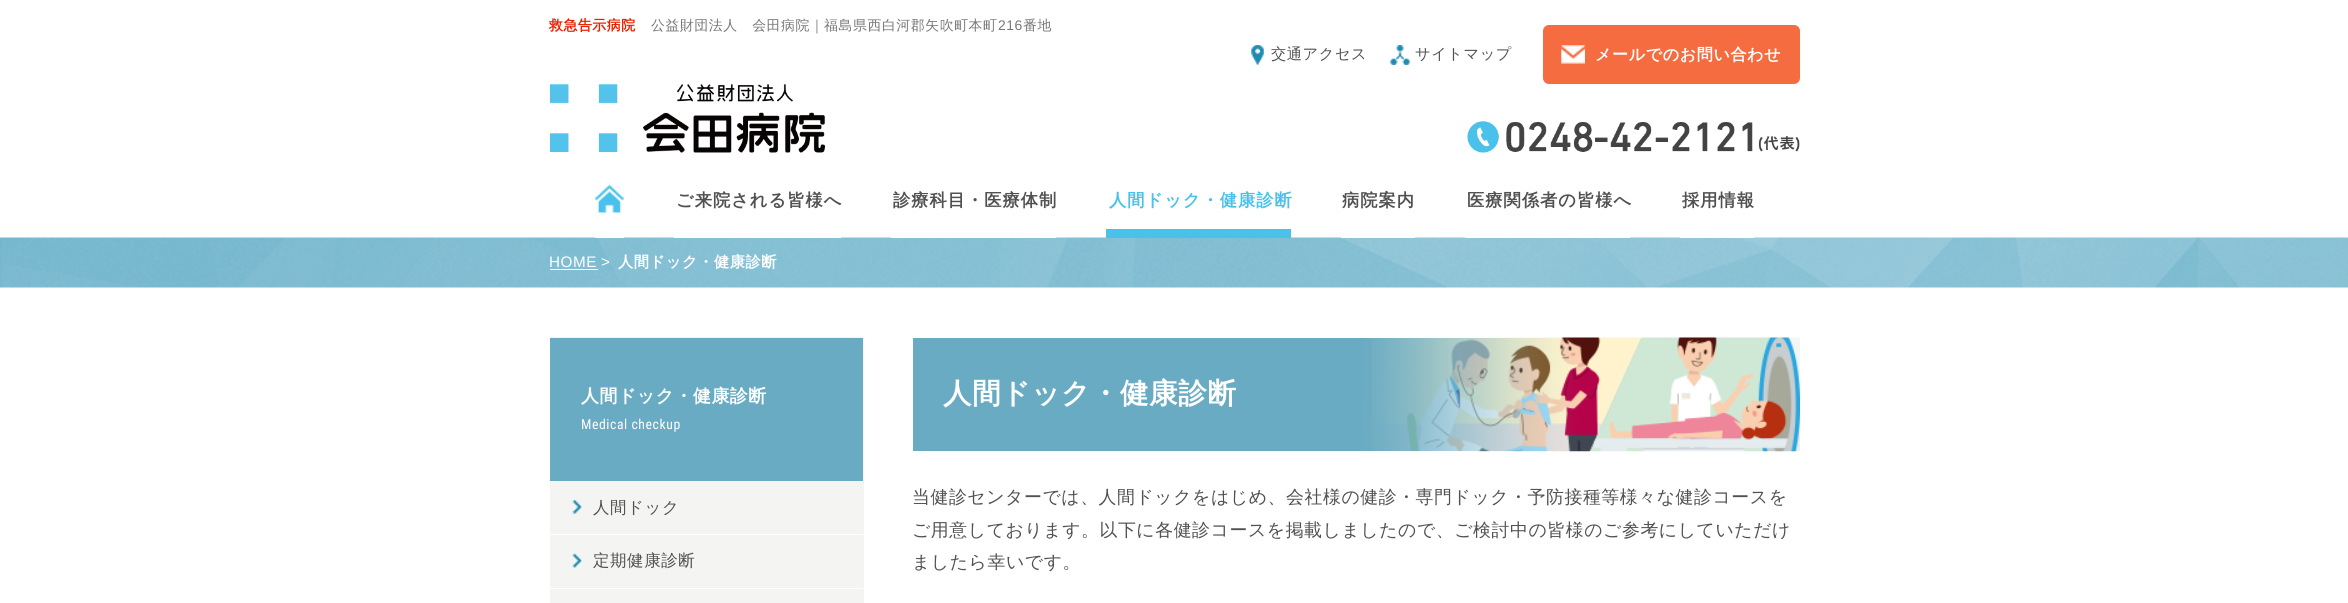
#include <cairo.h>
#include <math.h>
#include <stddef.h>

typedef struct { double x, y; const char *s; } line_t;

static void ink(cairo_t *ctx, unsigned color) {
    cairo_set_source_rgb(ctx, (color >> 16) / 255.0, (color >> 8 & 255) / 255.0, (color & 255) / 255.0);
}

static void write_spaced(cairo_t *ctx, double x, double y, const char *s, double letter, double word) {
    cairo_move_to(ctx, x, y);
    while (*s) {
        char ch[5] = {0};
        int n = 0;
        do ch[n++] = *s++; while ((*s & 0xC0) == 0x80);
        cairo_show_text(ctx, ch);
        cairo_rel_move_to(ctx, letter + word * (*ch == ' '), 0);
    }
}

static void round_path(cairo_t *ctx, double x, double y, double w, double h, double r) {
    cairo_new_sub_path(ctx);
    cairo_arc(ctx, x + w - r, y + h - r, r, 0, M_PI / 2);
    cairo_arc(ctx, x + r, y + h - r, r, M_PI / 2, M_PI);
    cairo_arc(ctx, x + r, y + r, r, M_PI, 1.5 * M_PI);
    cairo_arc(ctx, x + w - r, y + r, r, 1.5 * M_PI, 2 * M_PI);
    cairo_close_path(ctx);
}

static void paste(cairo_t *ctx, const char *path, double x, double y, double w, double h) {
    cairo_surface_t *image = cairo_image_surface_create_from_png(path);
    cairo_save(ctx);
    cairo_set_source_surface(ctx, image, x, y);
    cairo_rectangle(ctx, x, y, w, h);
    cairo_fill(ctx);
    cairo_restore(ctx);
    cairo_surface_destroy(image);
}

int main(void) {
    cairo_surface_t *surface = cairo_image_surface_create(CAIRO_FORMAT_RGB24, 2348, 603);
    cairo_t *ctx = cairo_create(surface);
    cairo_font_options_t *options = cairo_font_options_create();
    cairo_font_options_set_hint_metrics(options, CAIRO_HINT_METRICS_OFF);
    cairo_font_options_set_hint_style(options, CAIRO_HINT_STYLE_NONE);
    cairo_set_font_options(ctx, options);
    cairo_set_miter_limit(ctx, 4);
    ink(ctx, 0xFFFFFF);
    cairo_paint(ctx);
    cairo_select_font_face(ctx, "WenQuanYi Zen Hei", CAIRO_FONT_SLANT_NORMAL, CAIRO_FONT_WEIGHT_BOLD);
    cairo_set_font_size(ctx, 13.9);
    ink(ctx, 0xE72101);
    write_spaced(ctx, 549, 30, "救急告示病院", 0.55, 0);
    cairo_select_font_face(ctx, "WenQuanYi Zen Hei Medium", CAIRO_FONT_SLANT_NORMAL, CAIRO_FONT_WEIGHT_NORMAL);
    ink(ctx, 0x777777);
    write_spaced(ctx, 651, 30, "公益財団法人　会田病院｜福島県西白河郡矢吹町本町", 0.55, 0);
    cairo_select_font_face(ctx, "Liberation Sans", CAIRO_FONT_SLANT_NORMAL, CAIRO_FONT_WEIGHT_NORMAL);
    write_spaced(ctx, 998, 30, "216", 0.55, 0);
    cairo_select_font_face(ctx, "WenQuanYi Zen Hei Medium", CAIRO_FONT_SLANT_NORMAL, CAIRO_FONT_WEIGHT_NORMAL);
    write_spaced(ctx, 1023, 30, "番地", 0.55, 0);
    paste(ctx, "media/1.png", 1251, 45, 13, 20);
    cairo_set_font_size(ctx, 15.25);
    ink(ctx, 0x515151);
    write_spaced(ctx, 1271, 59, "交通アクセス", 0.55, 0);
    paste(ctx, "media/2.png", 1390, 45, 20, 20);
    write_spaced(ctx, 1415, 59, "サイトマップ", 0.55, 0);
    ink(ctx, 0xF46C3F);
    round_path(ctx, 1543, 25, 257, 59, 6);
    cairo_fill(ctx);
    paste(ctx, "media/3.png", 1561, 45, 24, 19);
    cairo_select_font_face(ctx, "WenQuanYi Zen Hei", CAIRO_FONT_SLANT_NORMAL, CAIRO_FONT_WEIGHT_BOLD);
    cairo_set_font_size(ctx, 16.1);
    ink(ctx, 0xFFFFFF);
    write_spaced(ctx, 1595, 60, "メールでのお問い合わせ", 0.55, 0);
    paste(ctx, "media/4.png", 1467, 121, 333, 32);
    paste(ctx, "media/5.png", 550, 84, 275, 69);
    paste(ctx, "media/7.png", 0, 237, 2348, 51);
    cairo_rectangle(ctx, 595, 237, 29, 1);
    cairo_fill(ctx);
    paste(ctx, "media/6.png", 595, 185, 29, 28);
    cairo_rectangle(ctx, 674, 237, 167, 1);
    cairo_fill(ctx);
    cairo_set_font_size(ctx, 17.25);
    ink(ctx, 0x515151);
    write_spaced(ctx, 676, 206, "ご来院される皆様へ", 1, 0);
    ink(ctx, 0xFFFFFF);
    cairo_rectangle(ctx, 891, 237, 165, 1);
    cairo_fill(ctx);
    ink(ctx, 0x515151);
    write_spaced(ctx, 893, 206, "診療科目・医療体制", 1, 0);
    ink(ctx, 0x4AC1EB);
    cairo_rectangle(ctx, 1106, 229, 185, 9);
    cairo_fill(ctx);
    write_spaced(ctx, 1109, 206, "人間ドック・健康診断", 1, 0);
    ink(ctx, 0xFFFFFF);
    cairo_rectangle(ctx, 1341, 237, 74, 1);
    cairo_fill(ctx);
    ink(ctx, 0x515151);
    write_spaced(ctx, 1342, 206, "病院案内", 1, 0);
    ink(ctx, 0xFFFFFF);
    cairo_rectangle(ctx, 1465, 237, 165, 1);
    cairo_fill(ctx);
    ink(ctx, 0x515151);
    write_spaced(ctx, 1467, 206, "医療関係者の皆様へ", 1, 0);
    ink(ctx, 0xFFFFFF);
    cairo_rectangle(ctx, 1680, 237, 74, 1);
    cairo_fill(ctx);
    ink(ctx, 0x515151);
    write_spaced(ctx, 1682, 206, "採用情報", 1, 0);
    cairo_select_font_face(ctx, "Liberation Sans", CAIRO_FONT_SLANT_NORMAL, CAIRO_FONT_WEIGHT_NORMAL);
    cairo_set_font_size(ctx, 15.25);
    ink(ctx, 0xFFFFFF);
    write_spaced(ctx, 549, 267, "HOME", 0.55, 0);
    cairo_rectangle(ctx, 550, 269, 48, 1);
    cairo_fill(ctx);
    write_spaced(ctx, 601, 267, ">", 0.55, 0);
    cairo_select_font_face(ctx, "WenQuanYi Zen Hei", CAIRO_FONT_SLANT_NORMAL, CAIRO_FONT_WEIGHT_BOLD);
    write_spaced(ctx, 618, 267, "人間ドック・健康診断", 0.55, 0);
    ink(ctx, 0xF4F4F3);
    cairo_rectangle(ctx, 550, 337, 314, 266);
    cairo_fill(ctx);
    ink(ctx, 0x69ABC3);
    cairo_rectangle(ctx, 550, 338, 313, 143);
    cairo_fill(ctx);
    cairo_set_font_size(ctx, 17.9);
    ink(ctx, 0xFFFFFF);
    write_spaced(ctx, 581, 402, "人間ドック・健康診断", 0.55, 0);
    cairo_select_font_face(ctx, "Roboto Condensed", CAIRO_FONT_SLANT_NORMAL, CAIRO_FONT_WEIGHT_NORMAL);
    cairo_set_font_size(ctx, 13.75);
    write_spaced(ctx, 581, 429, "Medical checkup", 0.55, 0);
    cairo_rectangle(ctx, 550, 534, 313, 1);
    cairo_fill(ctx);
    paste(ctx, "media/8.png", 572, 500, 10, 14);
    cairo_select_font_face(ctx, "WenQuanYi Zen Hei Medium", CAIRO_FONT_SLANT_NORMAL, CAIRO_FONT_WEIGHT_NORMAL);
    cairo_set_font_size(ctx, 16.5);
    ink(ctx, 0x515151);
    write_spaced(ctx, 593, 513, "人間ドック", 0.55, 0);
    ink(ctx, 0xFFFFFF);
    cairo_rectangle(ctx, 550, 588, 313, 1);
    cairo_fill(ctx);
    paste(ctx, "media/9.png", 572, 553, 10, 15);
    ink(ctx, 0x515151);
    write_spaced(ctx, 593, 566, "定期健康診断", 0.55, 0);
    ink(ctx, 0x69ABC3);
    cairo_rectangle(ctx, 913, 338, 730, 113);
    cairo_fill(ctx);
    paste(ctx, "media/10.png", 1363, 337, 437, 115);
    cairo_select_font_face(ctx, "WenQuanYi Zen Hei", CAIRO_FONT_SLANT_NORMAL, CAIRO_FONT_WEIGHT_BOLD);
    cairo_set_font_size(ctx, 28.6);
    ink(ctx, 0xFFFFFF);
    write_spaced(ctx, 943, 403, "人間ドック・健康診断", 0.55, 0);
    cairo_select_font_face(ctx, "WenQuanYi Zen Hei Medium", CAIRO_FONT_SLANT_NORMAL, CAIRO_FONT_WEIGHT_NORMAL);
    cairo_set_font_size(ctx, 17.9);
    ink(ctx, 0x515151);
    {
        static const line_t items[] = {
            {912, 503, "当健診センターでは、人間ドックをはじめ、会社様の健診・専門ドック・予防接種等様々な健診コースを"},
            {912, 536, "ご用意しております。以下に各健診コースを掲載しましたので、ご検討中の皆様のご参考にしていただけ"},
            {912, 568, "ましたら幸いです。"},
        };
        for (size_t i = 0; i < sizeof items / sizeof *items; i++) {
            write_spaced(ctx, items[i].x, items[i].y, items[i].s, 0.55, 0);
        }
    }
    cairo_surface_write_to_png(surface, "image.png");
    cairo_font_options_destroy(options);
    cairo_destroy(ctx);
    cairo_surface_destroy(surface);
    return 0;
}
